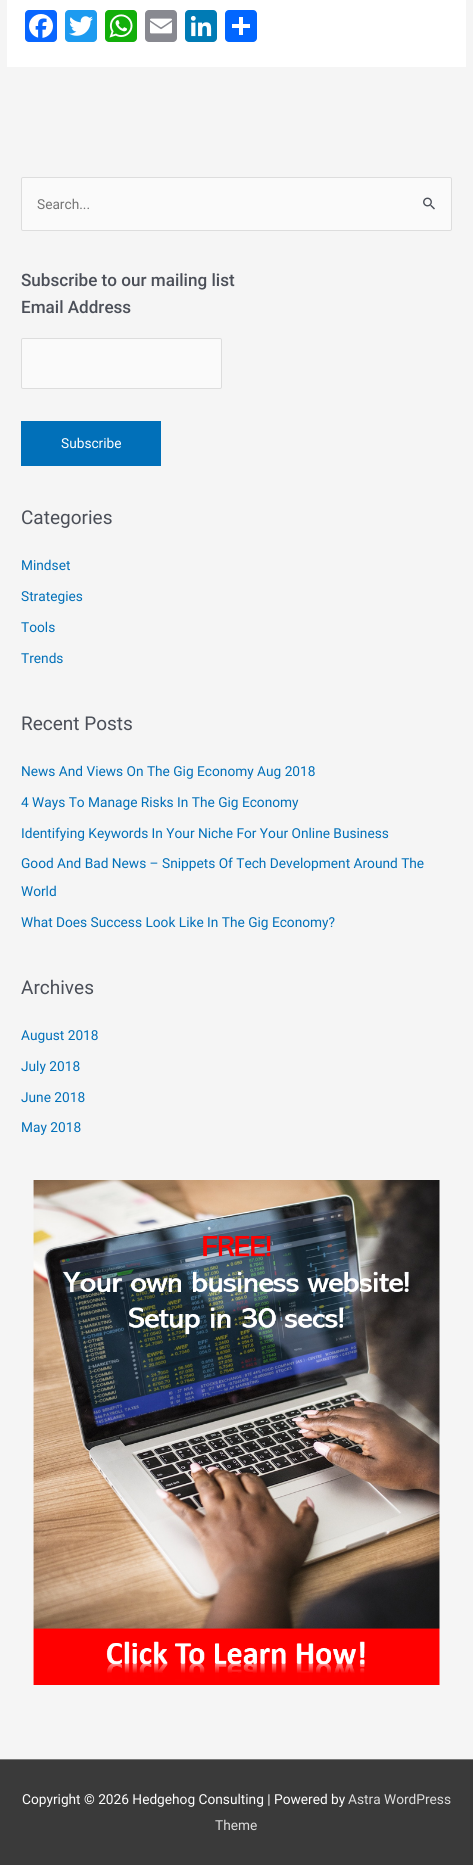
#include <cairo.h>
#include <math.h>
#include <stddef.h>

typedef struct { double x, y; const char *s; } line_t;

static void ink(cairo_t *ctx, unsigned color) {
    cairo_set_source_rgb(ctx, (color >> 16) / 255.0, (color >> 8 & 255) / 255.0, (color & 255) / 255.0);
}

static void round_path(cairo_t *ctx, double x, double y, double w, double h, double r) {
    cairo_new_sub_path(ctx);
    cairo_arc(ctx, x + w - r, y + h - r, r, 0, M_PI / 2);
    cairo_arc(ctx, x + r, y + h - r, r, M_PI / 2, M_PI);
    cairo_arc(ctx, x + r, y + r, r, M_PI, 1.5 * M_PI);
    cairo_arc(ctx, x + w - r, y + r, r, 1.5 * M_PI, 2 * M_PI);
    cairo_close_path(ctx);
}

static void paste(cairo_t *ctx, const char *path, double x, double y, double w, double h) {
    cairo_surface_t *image = cairo_image_surface_create_from_png(path);
    cairo_save(ctx);
    cairo_set_source_surface(ctx, image, x, y);
    cairo_rectangle(ctx, x, y, w, h);
    cairo_fill(ctx);
    cairo_restore(ctx);
    cairo_surface_destroy(image);
}

int main(void) {
    cairo_surface_t *surface = cairo_image_surface_create(CAIRO_FORMAT_RGB24, 473, 1865);
    cairo_t *ctx = cairo_create(surface);
    cairo_font_options_t *options = cairo_font_options_create();
    cairo_font_options_set_hint_metrics(options, CAIRO_HINT_METRICS_OFF);
    cairo_font_options_set_hint_style(options, CAIRO_HINT_STYLE_NONE);
    cairo_set_font_options(ctx, options);
    cairo_set_miter_limit(ctx, 4);
    ink(ctx, 0xF5F5F5);
    cairo_paint(ctx);
    ink(ctx, 0xFFFFFF);
    cairo_rectangle(ctx, 7, 0, 459, 67);
    cairo_fill(ctx);
    ink(ctx, 0x0866FF);
    round_path(ctx, 25, 10, 32, 32, 4);
    cairo_fill(ctx);
    paste(ctx, "media/1.png", 29, 14, 24, 24);
    ink(ctx, 0x1D9BF0);
    round_path(ctx, 65, 10, 32, 32, 4);
    cairo_fill(ctx);
    paste(ctx, "media/2.png", 69, 16, 24, 20);
    ink(ctx, 0x12AF0A);
    round_path(ctx, 105, 10, 32, 32, 4);
    cairo_fill(ctx);
    paste(ctx, "media/3.png", 109, 14, 24, 24);
    ink(ctx, 0x888990);
    round_path(ctx, 145, 10, 32, 32, 4);
    cairo_fill(ctx);
    paste(ctx, "media/4.png", 150, 18, 22, 16);
    ink(ctx, 0x007BB5);
    round_path(ctx, 185, 10, 32, 32, 4);
    cairo_fill(ctx);
    paste(ctx, "media/5.png", 190, 15, 22, 22);
    ink(ctx, 0x0166FF);
    round_path(ctx, 225, 10, 32, 32, 4);
    cairo_fill(ctx);
    ink(ctx, 0xFFFFFF);
    cairo_rectangle(ctx, 239, 17, 4, 18);
    cairo_fill(ctx);
    cairo_rectangle(ctx, 232, 24, 18, 4);
    cairo_fill(ctx);
    ink(ctx, 0xFAFAFA);
    round_path(ctx, 21.5, 177.5, 430, 53, 1.5);
    cairo_fill_preserve(ctx);
    ink(ctx, 0xDDDDDD);
    cairo_set_line_width(ctx, 1);
    cairo_stroke(ctx);
    cairo_select_font_face(ctx, "Roboto", CAIRO_FONT_SLANT_NORMAL, CAIRO_FONT_WEIGHT_NORMAL);
    cairo_set_font_size(ctx, 13.7);
    ink(ctx, 0x757575);
    cairo_move_to(ctx, 37, 209);
    cairo_show_text(ctx, "Search...");
    paste(ctx, "media/6.png", 423, 197, 12, 13);
    cairo_select_font_face(ctx, "Roboto Medium", CAIRO_FONT_SLANT_NORMAL, CAIRO_FONT_WEIGHT_NORMAL);
    cairo_set_font_size(ctx, 17.1);
    ink(ctx, 0x4B4F58);
    cairo_move_to(ctx, 21, 286);
    cairo_show_text(ctx, "Subscribe to our mailing list");
    cairo_move_to(ctx, 21, 313);
    cairo_show_text(ctx, "Email Address");
    ink(ctx, 0xFAFAFA);
    round_path(ctx, 21.5, 338.5, 200, 50, 1.5);
    cairo_fill_preserve(ctx);
    ink(ctx, 0xDDDDDD);
    cairo_stroke(ctx);
    ink(ctx, 0x0170B9);
    cairo_rectangle(ctx, 21, 421, 140, 45);
    cairo_fill(ctx);
    cairo_select_font_face(ctx, "Roboto", CAIRO_FONT_SLANT_NORMAL, CAIRO_FONT_WEIGHT_NORMAL);
    cairo_set_font_size(ctx, 13.7);
    ink(ctx, 0xFFFFFF);
    cairo_move_to(ctx, 61, 448);
    cairo_show_text(ctx, "Subscribe");
    cairo_set_font_size(ctx, 19);
    ink(ctx, 0x4B4F58);
    cairo_move_to(ctx, 21, 524);
    cairo_show_text(ctx, "Categories");
    cairo_set_font_size(ctx, 13.7);
    ink(ctx, 0x0170B9);
    {
        static const line_t items[] = {
            {21, 570, "Mindset"},
            {21, 601, "Strategies"},
            {21, 632, "Tools"},
            {21, 663, "Trends"},
        };
        for (size_t i = 0; i < sizeof items / sizeof *items; i++) {
            cairo_move_to(ctx, items[i].x, items[i].y);
            cairo_show_text(ctx, items[i].s);
        }
    }
    cairo_set_font_size(ctx, 19);
    ink(ctx, 0x4B4F58);
    cairo_move_to(ctx, 21, 730);
    cairo_show_text(ctx, "Recent Posts");
    cairo_set_font_size(ctx, 13.7);
    ink(ctx, 0x0170B9);
    {
        static const line_t items[] = {
            {21, 776, "News And Views On The Gig Economy Aug 2018"},
            {21, 807, "4 Ways To Manage Risks In The Gig Economy"},
            {21, 838, "Identifying Keywords In Your Niche For Your Online Business"},
            {21, 868, "Good And Bad News – Snippets Of Tech Development Around The"},
            {21, 896, "World"},
            {21, 927, "What Does Success Look Like In The Gig Economy?"},
        };
        for (size_t i = 0; i < sizeof items / sizeof *items; i++) {
            cairo_move_to(ctx, items[i].x, items[i].y);
            cairo_show_text(ctx, items[i].s);
        }
    }
    cairo_set_font_size(ctx, 19);
    ink(ctx, 0x4B4F58);
    cairo_move_to(ctx, 21, 994);
    cairo_show_text(ctx, "Archives");
    cairo_set_font_size(ctx, 13.7);
    ink(ctx, 0x0170B9);
    {
        static const line_t items[] = {
            {21, 1040, "August 2018"},
            {21, 1071, "July 2018"},
            {21, 1102, "June 2018"},
            {21, 1132, "May 2018"},
        };
        for (size_t i = 0; i < sizeof items / sizeof *items; i++) {
            cairo_move_to(ctx, items[i].x, items[i].y);
            cairo_show_text(ctx, items[i].s);
        }
    }
    paste(ctx, "media/7.png", 33, 1180, 407, 505);
    ink(ctx, 0x7A7A7A);
    cairo_rectangle(ctx, 0, 1759, 473, 1);
    cairo_fill(ctx);
    ink(ctx, 0x3A3A3A);
    cairo_rectangle(ctx, 0, 1760, 473, 105);
    cairo_fill(ctx);
    ink(ctx, 0xFFFFFF);
    cairo_move_to(ctx, 22, 1804);
    cairo_show_text(ctx, "Copyright © 2026 Hedgehog Consulting | Powered by");
    ink(ctx, 0xDDDDDD);
    cairo_move_to(ctx, 348, 1804);
    cairo_show_text(ctx, "Astra WordPress");
    cairo_move_to(ctx, 215, 1830);
    cairo_show_text(ctx, "Theme");
    cairo_surface_write_to_png(surface, "image.png");
    cairo_font_options_destroy(options);
    cairo_destroy(ctx);
    cairo_surface_destroy(surface);
    return 0;
}
